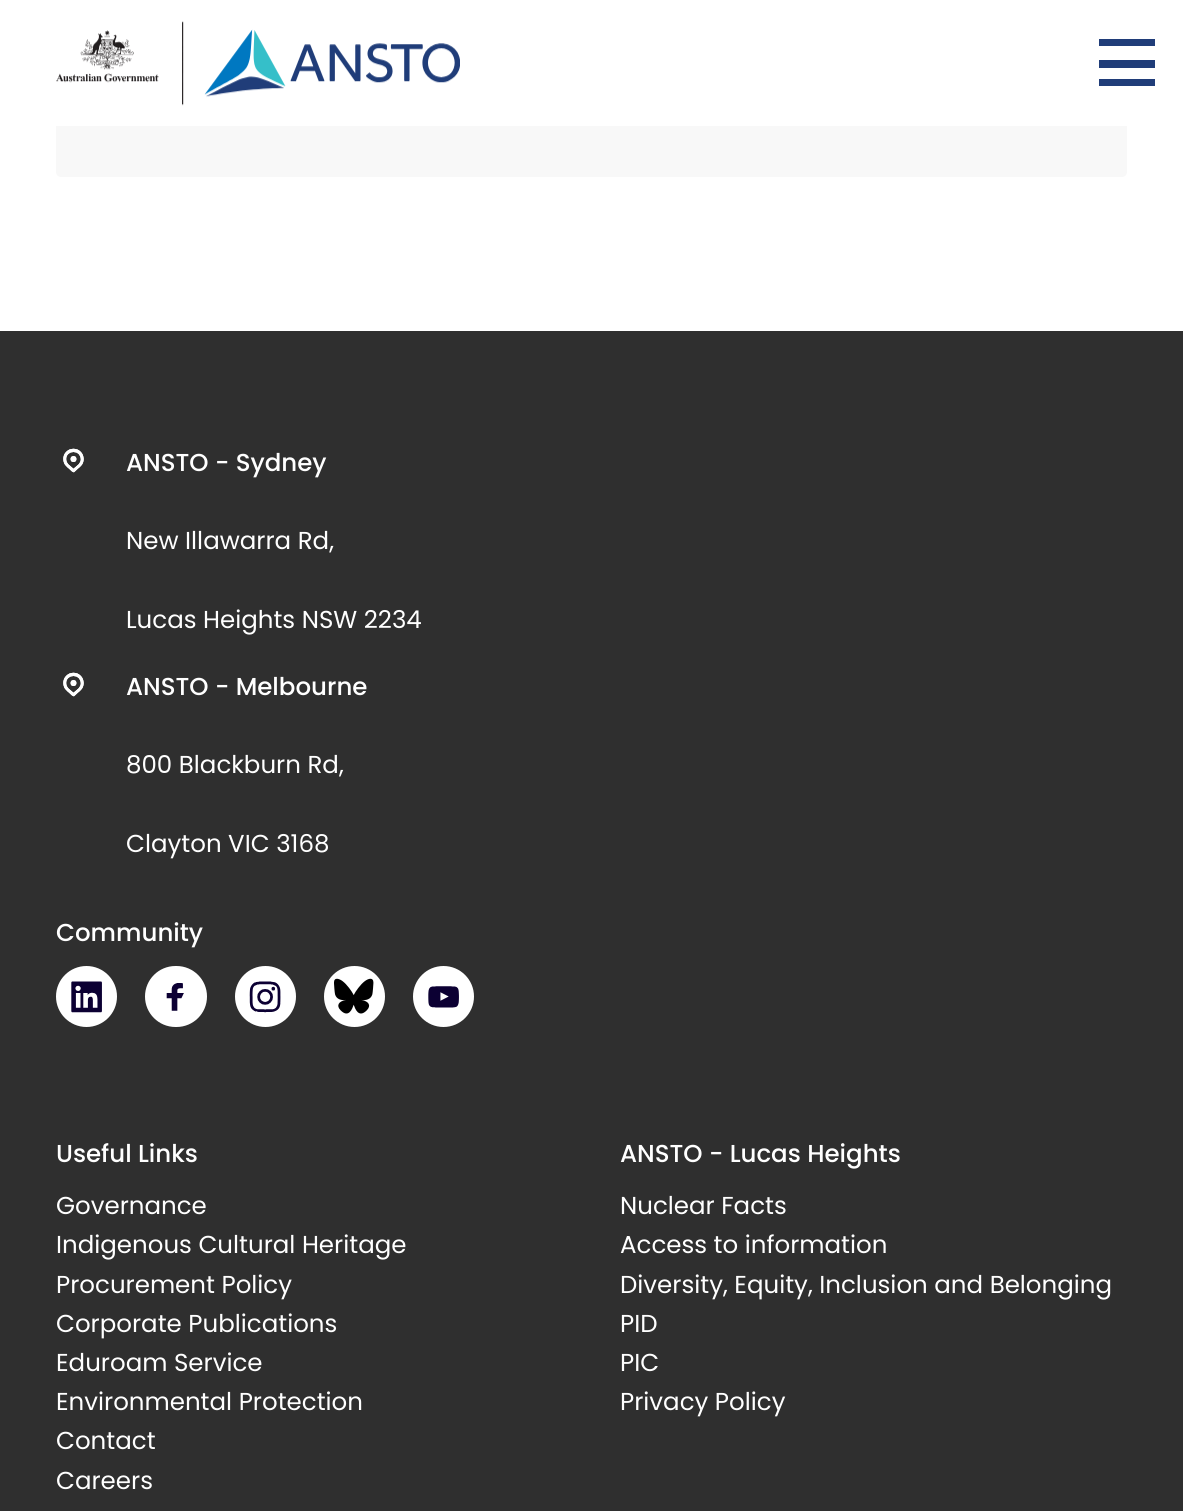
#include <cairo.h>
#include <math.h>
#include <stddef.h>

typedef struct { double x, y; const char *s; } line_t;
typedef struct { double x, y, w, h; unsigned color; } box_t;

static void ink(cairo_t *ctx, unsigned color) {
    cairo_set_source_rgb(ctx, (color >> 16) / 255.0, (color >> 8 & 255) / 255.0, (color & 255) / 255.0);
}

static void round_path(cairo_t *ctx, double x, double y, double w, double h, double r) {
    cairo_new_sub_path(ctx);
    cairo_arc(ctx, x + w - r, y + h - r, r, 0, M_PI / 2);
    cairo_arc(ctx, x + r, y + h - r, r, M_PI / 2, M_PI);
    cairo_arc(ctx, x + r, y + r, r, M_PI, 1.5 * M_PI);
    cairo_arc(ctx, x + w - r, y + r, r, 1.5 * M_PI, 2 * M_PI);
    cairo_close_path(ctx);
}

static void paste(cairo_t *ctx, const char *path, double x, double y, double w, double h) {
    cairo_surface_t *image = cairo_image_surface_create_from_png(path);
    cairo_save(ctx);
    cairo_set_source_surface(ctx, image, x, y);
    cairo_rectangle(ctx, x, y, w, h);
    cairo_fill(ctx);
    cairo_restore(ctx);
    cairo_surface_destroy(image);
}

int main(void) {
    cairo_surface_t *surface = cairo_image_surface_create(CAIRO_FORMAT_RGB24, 1183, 1511);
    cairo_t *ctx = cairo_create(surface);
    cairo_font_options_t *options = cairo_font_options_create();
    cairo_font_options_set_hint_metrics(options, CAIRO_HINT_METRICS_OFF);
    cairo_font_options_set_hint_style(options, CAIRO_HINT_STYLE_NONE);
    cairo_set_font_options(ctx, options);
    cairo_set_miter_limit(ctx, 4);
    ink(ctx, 0xFFFFFF);
    cairo_paint(ctx);
    ink(ctx, 0xF8F8F8);
    round_path(ctx, 56, -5, 1071, 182, 5);
    cairo_fill(ctx);
    ink(ctx, 0xFFFFFF);
    cairo_rectangle(ctx, 56, 0, 1071, 126);
    cairo_fill(ctx);
    paste(ctx, "media/1.png", 56, 21, 404, 85);
    {
        static const box_t items[] = {
            {1099, 39, 56, 7, 0x203D79},
            {1099, 79, 56, 7, 0x203D79},
            {1099, 60, 56, 8, 0x203D79},
            {0, 331, 1183, 1180, 0x2F2F2F},
        };
        for (size_t i = 0; i < sizeof items / sizeof *items; i++) {
            ink(ctx, items[i].color);
            cairo_rectangle(ctx, items[i].x, items[i].y, items[i].w, items[i].h);
            cairo_fill(ctx);
        }
    }
    paste(ctx, "media/2.png", 63, 448, 21, 25);
    cairo_select_font_face(ctx, "Poppins Medium", CAIRO_FONT_SLANT_NORMAL, CAIRO_FONT_WEIGHT_NORMAL);
    cairo_set_font_size(ctx, 24.5);
    ink(ctx, 0xFFFFFF);
    cairo_move_to(ctx, 126, 471);
    cairo_show_text(ctx, "ANSTO - Sydney");
    cairo_select_font_face(ctx, "Poppins", CAIRO_FONT_SLANT_NORMAL, CAIRO_FONT_WEIGHT_NORMAL);
    cairo_move_to(ctx, 126, 549);
    cairo_show_text(ctx, "New Illawarra Rd,");
    cairo_move_to(ctx, 126, 628);
    cairo_show_text(ctx, "Lucas Heights NSW 2234");
    paste(ctx, "media/2.png", 63, 672, 21, 25);
    cairo_select_font_face(ctx, "Poppins Medium", CAIRO_FONT_SLANT_NORMAL, CAIRO_FONT_WEIGHT_NORMAL);
    cairo_move_to(ctx, 126, 695);
    cairo_show_text(ctx, "ANSTO - Melbourne");
    cairo_select_font_face(ctx, "Poppins", CAIRO_FONT_SLANT_NORMAL, CAIRO_FONT_WEIGHT_NORMAL);
    cairo_move_to(ctx, 126, 773);
    cairo_show_text(ctx, "800 Blackburn Rd,");
    cairo_move_to(ctx, 126, 852);
    cairo_show_text(ctx, "Clayton VIC 3168");
    cairo_select_font_face(ctx, "Poppins Medium", CAIRO_FONT_SLANT_NORMAL, CAIRO_FONT_WEIGHT_NORMAL);
    cairo_move_to(ctx, 56, 941);
    cairo_show_text(ctx, "Community");
    cairo_new_path(ctx);
    cairo_arc(ctx, 86.5, 996.5, 30.5, 0, 2 * M_PI);
    cairo_fill(ctx);
    paste(ctx, "media/3.png", 71, 981, 31, 32);
    round_path(ctx, 145, 966, 62, 61, 30.5);
    cairo_fill(ctx);
    paste(ctx, "media/4.png", 166, 983, 18, 28);
    cairo_arc(ctx, 265.5, 996.5, 30.5, 0, 2 * M_PI);
    cairo_fill(ctx);
    paste(ctx, "media/5.png", 249, 981, 32, 32);
    cairo_arc(ctx, 354.5, 996.5, 30.5, 0, 2 * M_PI);
    cairo_fill(ctx);
    paste(ctx, "media/6.png", 334, 978, 40, 36);
    cairo_arc(ctx, 443.5, 996.5, 30.5, 0, 2 * M_PI);
    cairo_fill(ctx);
    paste(ctx, "media/7.png", 428, 986, 31, 22);
    cairo_move_to(ctx, 56, 1162);
    cairo_show_text(ctx, "Useful Links");
    cairo_select_font_face(ctx, "Poppins", CAIRO_FONT_SLANT_NORMAL, CAIRO_FONT_WEIGHT_NORMAL);
    {
        static const line_t items[] = {
            {56, 1214, "Governance"},
            {56, 1253, "Indigenous Cultural Heritage"},
            {56, 1293, "Procurement Policy"},
            {56, 1332, "Corporate Publications"},
            {56, 1371, "Eduroam Service"},
            {56, 1410, "Environmental Protection"},
            {56, 1449, "Contact"},
            {56, 1489, "Careers"},
        };
        for (size_t i = 0; i < sizeof items / sizeof *items; i++) {
            cairo_move_to(ctx, items[i].x, items[i].y);
            cairo_show_text(ctx, items[i].s);
        }
    }
    cairo_select_font_face(ctx, "Poppins Medium", CAIRO_FONT_SLANT_NORMAL, CAIRO_FONT_WEIGHT_NORMAL);
    cairo_move_to(ctx, 620, 1162);
    cairo_show_text(ctx, "ANSTO - Lucas Heights");
    cairo_select_font_face(ctx, "Poppins", CAIRO_FONT_SLANT_NORMAL, CAIRO_FONT_WEIGHT_NORMAL);
    {
        static const line_t items[] = {
            {620, 1214, "Nuclear Facts"},
            {620, 1253, "Access to information"},
            {620, 1293, "Diversity, Equity, Inclusion and Belonging"},
            {620, 1332, "PID"},
            {620, 1371, "PIC"},
            {620, 1410, "Privacy Policy"},
        };
        for (size_t i = 0; i < sizeof items / sizeof *items; i++) {
            cairo_move_to(ctx, items[i].x, items[i].y);
            cairo_show_text(ctx, items[i].s);
        }
    }
    cairo_surface_write_to_png(surface, "image.png");
    cairo_font_options_destroy(options);
    cairo_destroy(ctx);
    cairo_surface_destroy(surface);
    return 0;
}
